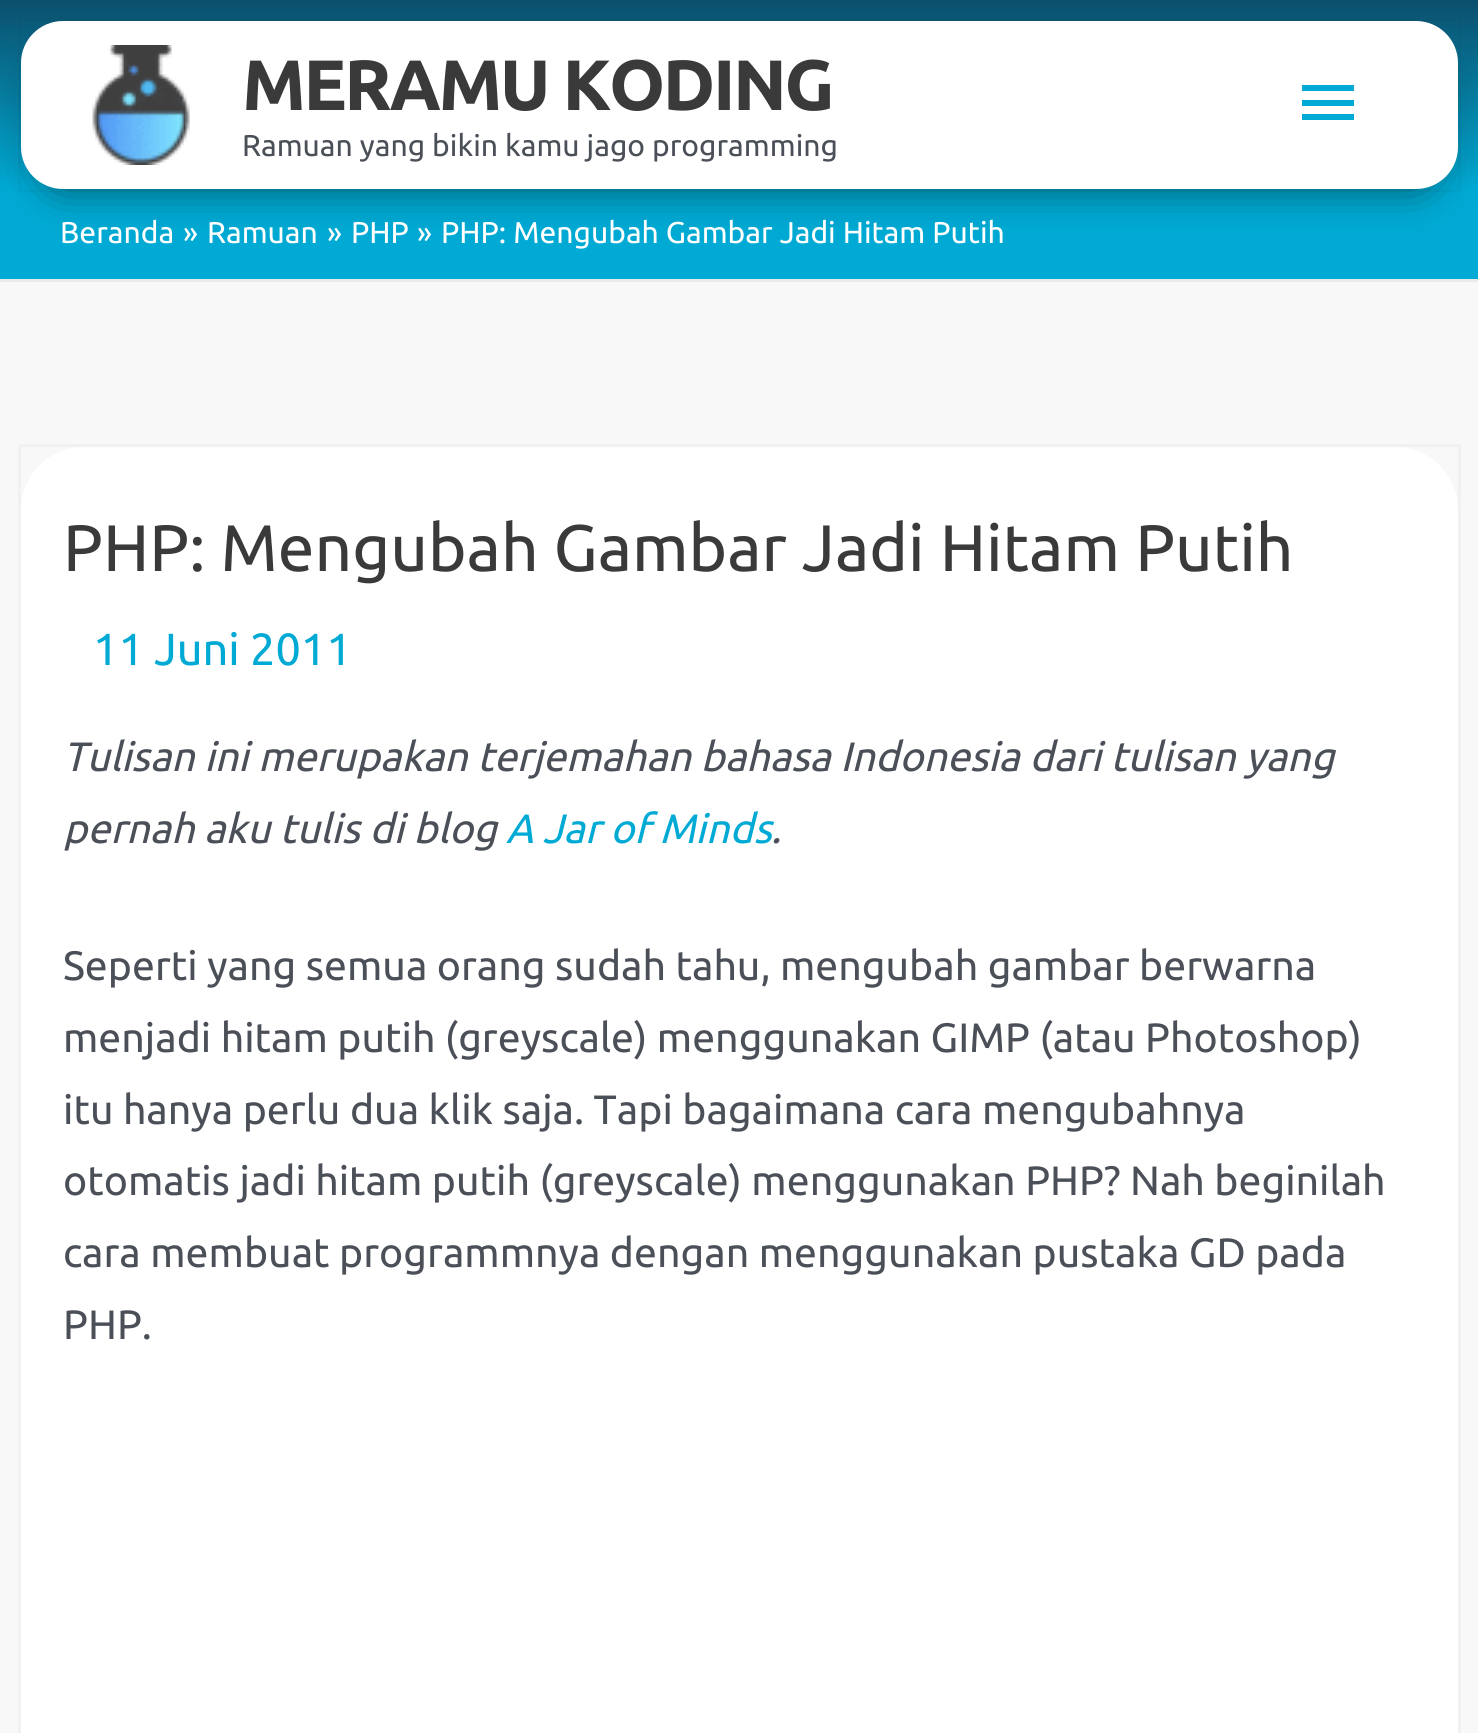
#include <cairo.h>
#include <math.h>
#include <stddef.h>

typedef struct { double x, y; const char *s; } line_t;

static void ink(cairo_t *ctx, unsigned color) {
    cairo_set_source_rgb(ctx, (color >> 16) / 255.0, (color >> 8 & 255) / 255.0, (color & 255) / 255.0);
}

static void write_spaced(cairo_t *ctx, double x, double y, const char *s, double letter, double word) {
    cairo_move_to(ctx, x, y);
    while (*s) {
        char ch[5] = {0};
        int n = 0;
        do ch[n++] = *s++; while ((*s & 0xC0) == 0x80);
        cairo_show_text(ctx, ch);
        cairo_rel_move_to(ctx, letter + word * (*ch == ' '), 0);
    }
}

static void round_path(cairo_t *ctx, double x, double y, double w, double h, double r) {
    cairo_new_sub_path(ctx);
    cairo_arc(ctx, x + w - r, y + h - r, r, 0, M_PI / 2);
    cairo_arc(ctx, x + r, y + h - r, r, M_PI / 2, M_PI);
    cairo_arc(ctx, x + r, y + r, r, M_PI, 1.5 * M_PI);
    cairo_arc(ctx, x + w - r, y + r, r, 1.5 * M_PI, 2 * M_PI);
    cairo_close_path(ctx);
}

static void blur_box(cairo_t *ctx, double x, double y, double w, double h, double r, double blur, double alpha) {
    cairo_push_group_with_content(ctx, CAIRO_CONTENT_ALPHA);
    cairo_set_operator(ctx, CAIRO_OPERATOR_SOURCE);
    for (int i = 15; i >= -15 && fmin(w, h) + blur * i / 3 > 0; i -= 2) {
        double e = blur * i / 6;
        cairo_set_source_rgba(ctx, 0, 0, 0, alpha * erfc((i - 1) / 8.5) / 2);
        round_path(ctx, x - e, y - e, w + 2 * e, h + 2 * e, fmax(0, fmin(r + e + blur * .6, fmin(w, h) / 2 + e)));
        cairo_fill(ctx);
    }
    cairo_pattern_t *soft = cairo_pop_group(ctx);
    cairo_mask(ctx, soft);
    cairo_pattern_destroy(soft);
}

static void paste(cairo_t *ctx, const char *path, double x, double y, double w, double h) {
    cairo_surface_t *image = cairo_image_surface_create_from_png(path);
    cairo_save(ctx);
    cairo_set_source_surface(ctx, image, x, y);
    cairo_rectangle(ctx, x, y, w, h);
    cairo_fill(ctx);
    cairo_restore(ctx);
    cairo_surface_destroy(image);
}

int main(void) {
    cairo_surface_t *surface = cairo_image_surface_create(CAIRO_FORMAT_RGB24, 1478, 1733);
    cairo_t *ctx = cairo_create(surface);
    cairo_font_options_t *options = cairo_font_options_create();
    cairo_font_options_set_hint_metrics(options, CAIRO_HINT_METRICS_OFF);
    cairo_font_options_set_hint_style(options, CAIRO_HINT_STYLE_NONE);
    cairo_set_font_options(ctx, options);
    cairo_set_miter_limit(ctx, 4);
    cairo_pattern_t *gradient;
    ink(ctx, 0xF8F8F8);
    cairo_paint(ctx);
    gradient = cairo_pattern_create_linear(740, 0, 740, 189);
    cairo_pattern_add_color_stop_rgba(gradient, 0, 0.043, 0.31, 0.424, 1);
    cairo_pattern_add_color_stop_rgba(gradient, 1, 0, 0.667, 0.831, 1);
    cairo_set_source(ctx, gradient);
    cairo_pattern_destroy(gradient);
    cairo_rectangle(ctx, 0, 0, 1478, 189);
    cairo_fill(ctx);
    ink(ctx, 0x00AAD4);
    cairo_rectangle(ctx, 0, 189, 1478, 90);
    cairo_fill(ctx);
    ink(ctx, 0x000000);
    blur_box(ctx, 42, 63, 1395, 126, 21, 20.5, 0.5);
    cairo_rectangle(ctx, 19.5, 19.5, 1440, 171);
    cairo_set_source_rgba(ctx, 0, 0, 0, 0.03);
    cairo_set_line_width(ctx, 3);
    cairo_stroke(ctx);
    ink(ctx, 0xFFFFFF);
    round_path(ctx, 21, 21, 1437, 168, 42);
    cairo_fill(ctx);
    paste(ctx, "media/1.png", 92, 45, 98, 120);
    cairo_select_font_face(ctx, "Ubuntu", CAIRO_FONT_SLANT_NORMAL, CAIRO_FONT_WEIGHT_BOLD);
    cairo_set_font_size(ctx, 71.25);
    ink(ctx, 0x3A3A3A);
    write_spaced(ctx, 242, 110, "MERAMU KODING", -2.4, 0);
    cairo_select_font_face(ctx, "Ubuntu", CAIRO_FONT_SLANT_NORMAL, CAIRO_FONT_WEIGHT_NORMAL);
    cairo_set_font_size(ctx, 30.1);
    ink(ctx, 0x4B4F58);
    cairo_move_to(ctx, 242, 156);
    cairo_show_text(ctx, "Ramuan yang bikin kamu jago programming");
    ink(ctx, 0x00AAD4);
    cairo_new_path(ctx);
    cairo_move_to(ctx, 1302, 85);
    cairo_line_to(ctx, 1354, 85);
    cairo_line_to(ctx, 1354, 91);
    cairo_line_to(ctx, 1302, 91);
    cairo_close_path(ctx);
    cairo_move_to(ctx, 1302, 106);
    cairo_line_to(ctx, 1302, 100);
    cairo_line_to(ctx, 1354, 100);
    cairo_line_to(ctx, 1354, 106);
    cairo_close_path(ctx);
    cairo_move_to(ctx, 1302, 120);
    cairo_line_to(ctx, 1302, 114);
    cairo_line_to(ctx, 1354, 114);
    cairo_line_to(ctx, 1354, 120);
    cairo_close_path(ctx);
    cairo_fill(ctx);
    ink(ctx, 0xEAEAEA);
    cairo_rectangle(ctx, 0, 279, 1478, 3);
    cairo_fill(ctx);
    ink(ctx, 0xFFFFFF);
    {
        static const line_t items[] = {
            {60, 243, "Beranda"},
            {183, 243, "»"},
            {207, 243, "Ramuan"},
            {327, 243, "»"},
            {351, 243, "PHP"},
            {417, 243, "»"},
            {441, 243, "PHP: Mengubah Gambar Jadi Hitam Putih"},
        };
        for (size_t i = 0; i < sizeof items / sizeof *items; i++) {
            cairo_move_to(ctx, items[i].x, items[i].y);
            cairo_show_text(ctx, items[i].s);
        }
    }
    cairo_rectangle(ctx, 19.5, 445.5, 1440, 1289);
    cairo_set_source_rgba(ctx, 0, 0, 0, 0.03);
    cairo_stroke(ctx);
    ink(ctx, 0xFFFFFF);
    round_path(ctx, 21, 447, 1437, 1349, 63);
    cairo_fill(ctx);
    cairo_set_font_size(ctx, 65.7);
    ink(ctx, 0x3A3A3A);
    cairo_move_to(ctx, 63, 571);
    cairo_show_text(ctx, "PHP: Mengubah Gambar Jadi Hitam Putih");
    cairo_set_font_size(ctx, 45);
    ink(ctx, 0x00AAD4);
    cairo_move_to(ctx, 93, 665);
    cairo_show_text(ctx, "11 Juni 2011");
    cairo_select_font_face(ctx, "Ubuntu", CAIRO_FONT_SLANT_ITALIC, CAIRO_FONT_WEIGHT_NORMAL);
    cairo_set_font_size(ctx, 41.05);
    ink(ctx, 0x4B4F58);
    cairo_move_to(ctx, 63, 771);
    cairo_show_text(ctx, "Tulisan ini merupakan terjemahan bahasa Indonesia dari tulisan yang");
    cairo_move_to(ctx, 63, 843);
    cairo_show_text(ctx, "pernah aku tulis di blog");
    ink(ctx, 0x00AAD4);
    cairo_move_to(ctx, 506, 843);
    cairo_show_text(ctx, "A Jar of Minds");
    ink(ctx, 0x4B4F58);
    cairo_move_to(ctx, 771, 843);
    cairo_show_text(ctx, ".");
    cairo_select_font_face(ctx, "Ubuntu", CAIRO_FONT_SLANT_NORMAL, CAIRO_FONT_WEIGHT_NORMAL);
    {
        static const line_t items[] = {
            {63, 980, "Seperti yang semua orang sudah tahu, mengubah gambar berwarna"},
            {63, 1052, "menjadi hitam putih (greyscale) menggunakan GIMP (atau Photoshop)"},
            {63, 1124, "itu hanya perlu dua klik saja. Tapi bagaimana cara mengubahnya"},
            {63, 1195, "otomatis jadi hitam putih (greyscale) menggunakan PHP? Nah beginilah"},
            {63, 1267, "cara membuat programmnya dengan menggunakan pustaka GD pada"},
            {63, 1339, "PHP."},
        };
        for (size_t i = 0; i < sizeof items / sizeof *items; i++) {
            cairo_move_to(ctx, items[i].x, items[i].y);
            cairo_show_text(ctx, items[i].s);
        }
    }
    cairo_surface_write_to_png(surface, "image.png");
    cairo_font_options_destroy(options);
    cairo_destroy(ctx);
    cairo_surface_destroy(surface);
    return 0;
}
